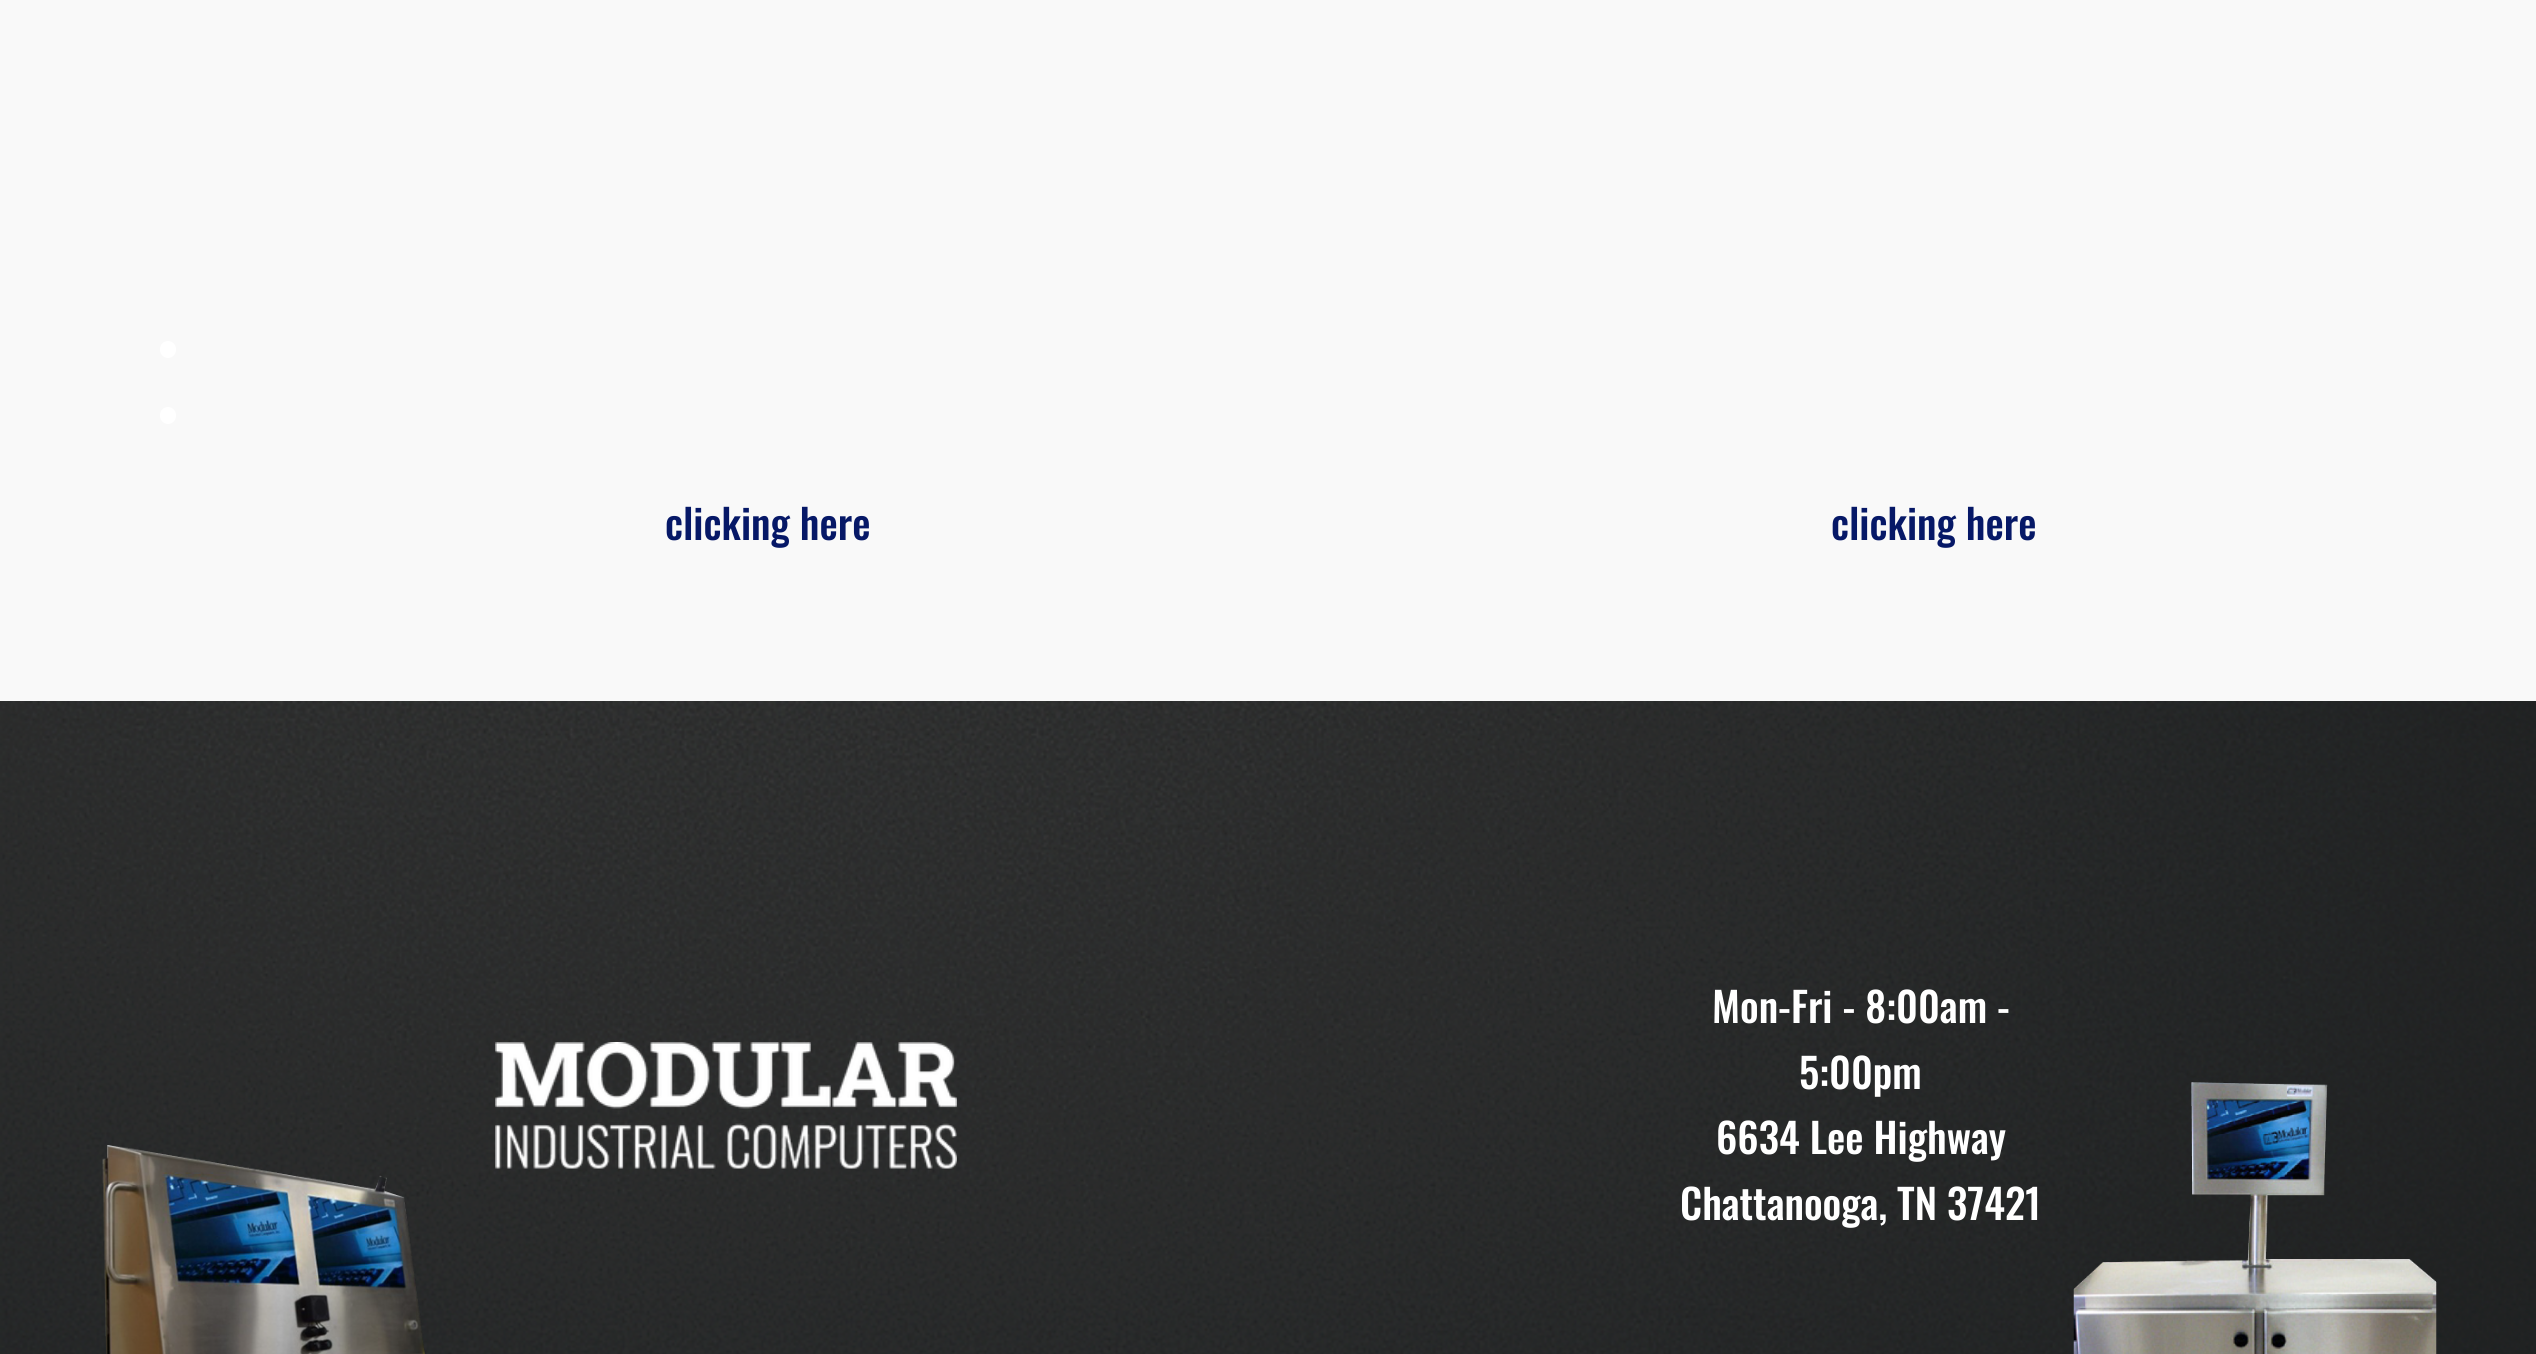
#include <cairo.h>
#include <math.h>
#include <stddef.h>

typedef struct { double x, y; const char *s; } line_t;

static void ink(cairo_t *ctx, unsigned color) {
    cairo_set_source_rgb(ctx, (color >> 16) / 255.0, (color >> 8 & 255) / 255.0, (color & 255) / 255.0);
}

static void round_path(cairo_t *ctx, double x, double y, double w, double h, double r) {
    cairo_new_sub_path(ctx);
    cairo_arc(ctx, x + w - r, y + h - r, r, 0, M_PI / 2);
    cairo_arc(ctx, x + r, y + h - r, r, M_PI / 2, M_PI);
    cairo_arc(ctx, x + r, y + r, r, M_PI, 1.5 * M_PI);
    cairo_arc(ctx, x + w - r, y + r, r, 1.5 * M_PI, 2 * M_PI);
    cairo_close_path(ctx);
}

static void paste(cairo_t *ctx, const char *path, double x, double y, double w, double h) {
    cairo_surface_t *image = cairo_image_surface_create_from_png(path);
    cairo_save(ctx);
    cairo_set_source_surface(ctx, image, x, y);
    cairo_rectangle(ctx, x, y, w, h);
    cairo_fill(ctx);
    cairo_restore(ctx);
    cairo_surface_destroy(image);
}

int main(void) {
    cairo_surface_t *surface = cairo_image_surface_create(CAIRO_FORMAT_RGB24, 2536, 1354);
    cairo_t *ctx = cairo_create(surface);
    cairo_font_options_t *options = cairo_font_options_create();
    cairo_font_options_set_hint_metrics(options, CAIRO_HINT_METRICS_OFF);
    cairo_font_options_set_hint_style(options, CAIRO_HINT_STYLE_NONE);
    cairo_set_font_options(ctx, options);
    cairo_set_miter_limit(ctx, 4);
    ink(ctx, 0xF9F9F9);
    cairo_paint(ctx);
    ink(ctx, 0xFFFFFF);
    round_path(ctx, 160, 341, 16, 17, 8);
    cairo_fill(ctx);
    round_path(ctx, 160, 407, 16, 17, 8);
    cairo_fill(ctx);
    cairo_select_font_face(ctx, "Oswald Medium", CAIRO_FONT_SLANT_NORMAL, CAIRO_FONT_WEIGHT_NORMAL);
    cairo_set_font_size(ctx, 41);
    ink(ctx, 0x061867);
    cairo_move_to(ctx, 665, 540);
    cairo_show_text(ctx, "clicking here");
    cairo_move_to(ctx, 1831, 540);
    cairo_show_text(ctx, "clicking here");
    paste(ctx, "media/1.png", 0, 701, 2536, 653);
    paste(ctx, "media/2.png", 102, 1145, 323, 209);
    paste(ctx, "media/3.png", 495, 1042, 462, 127);
    ink(ctx, 0xFFFFFF);
    {
        static const line_t items[] = {
            {1712, 1023, "Mon-Fri - 8:00am -"},
            {1799, 1089, "5:00pm"},
            {1716, 1154, "6634 Lee Highway"},
            {1680, 1220, "Chattanooga, TN 37421"},
        };
        for (size_t i = 0; i < sizeof items / sizeof *items; i++) {
            cairo_move_to(ctx, items[i].x, items[i].y);
            cairo_show_text(ctx, items[i].s);
        }
    }
    paste(ctx, "media/4.png", 2073, 1082, 364, 272);
    cairo_surface_write_to_png(surface, "image.png");
    cairo_font_options_destroy(options);
    cairo_destroy(ctx);
    cairo_surface_destroy(surface);
    return 0;
}
